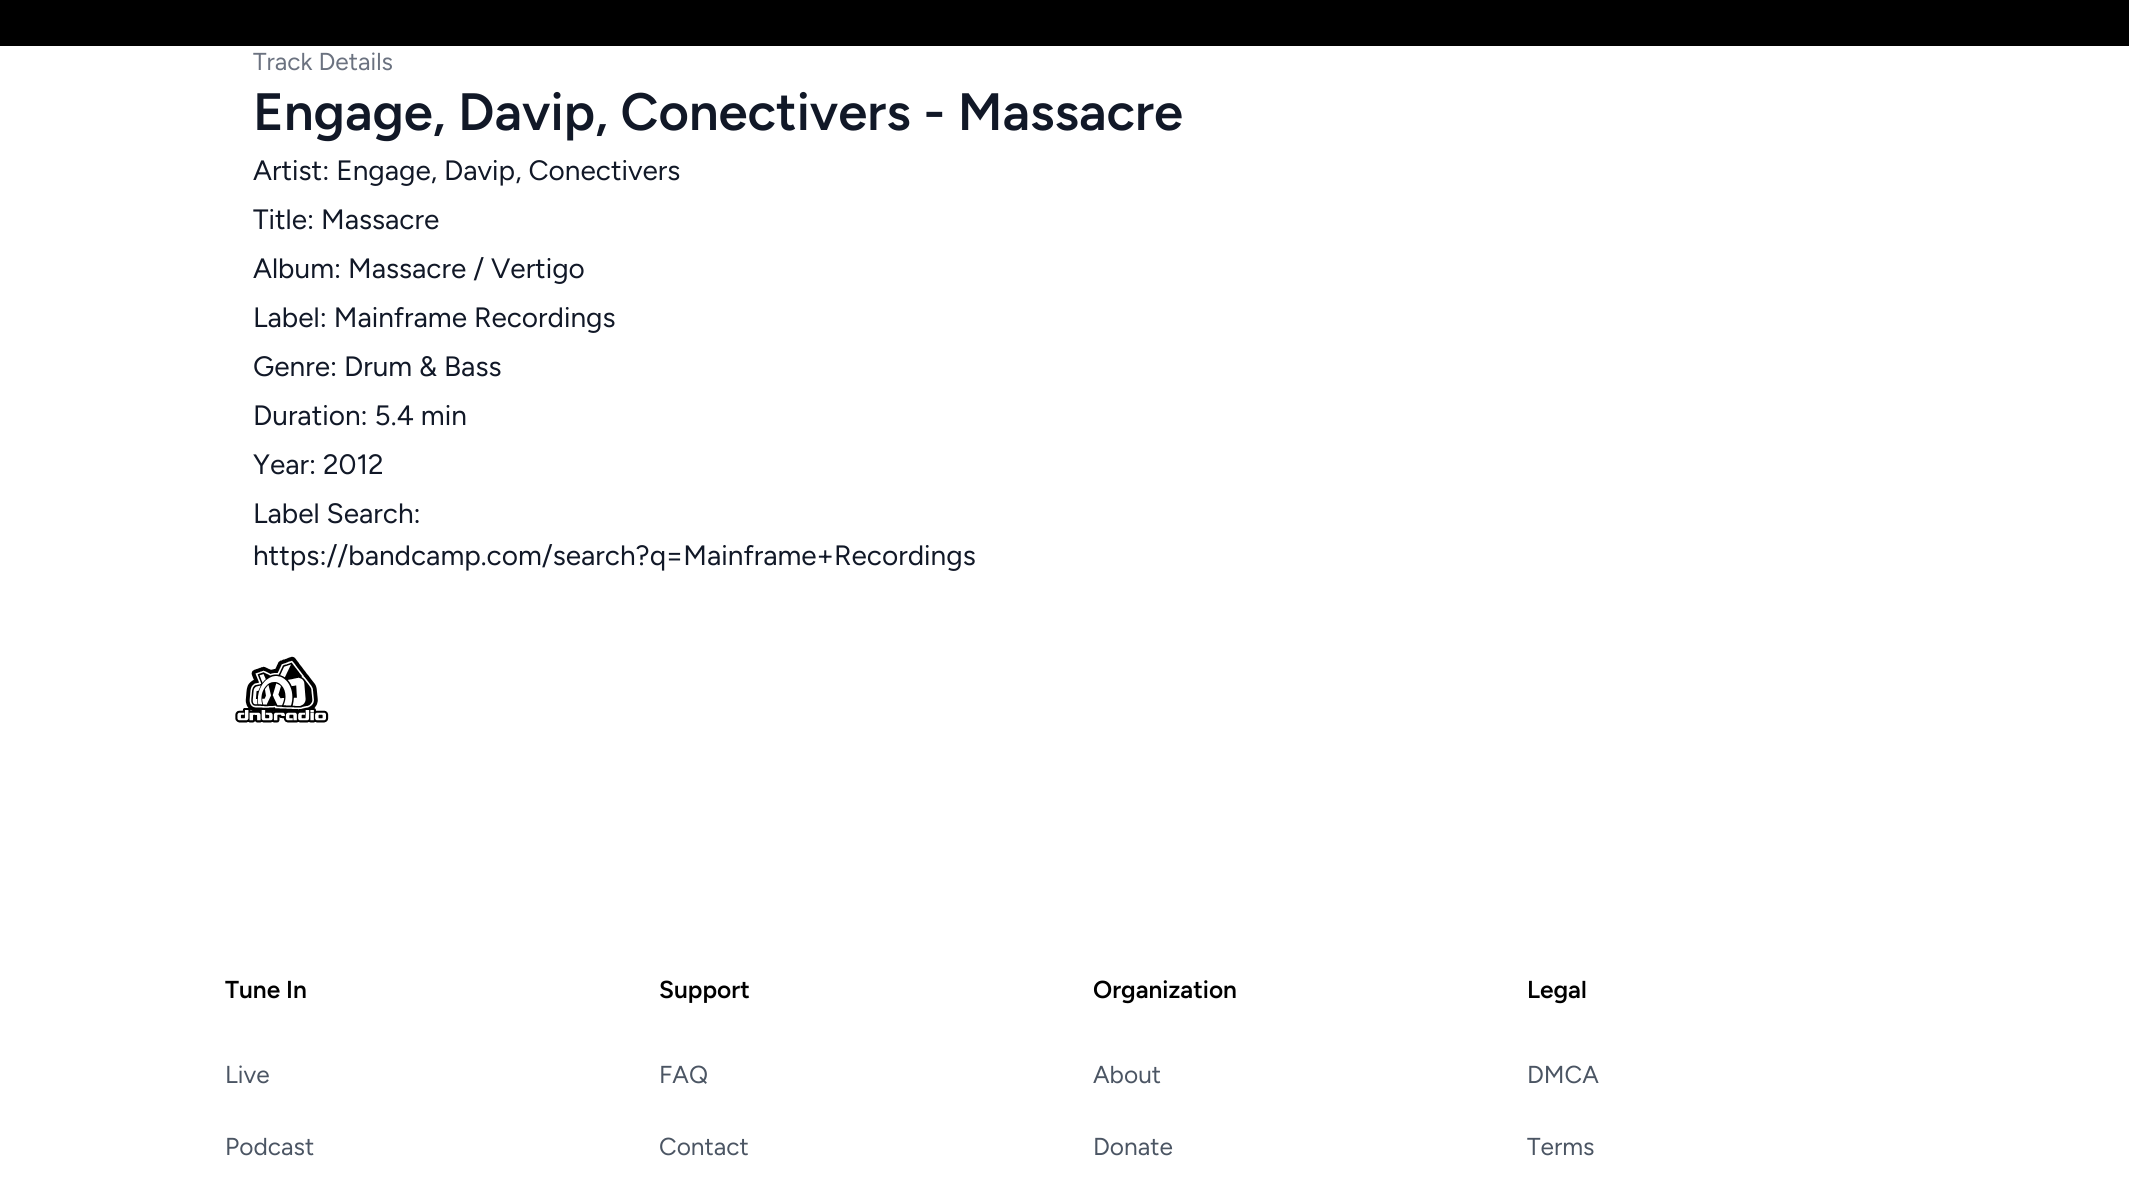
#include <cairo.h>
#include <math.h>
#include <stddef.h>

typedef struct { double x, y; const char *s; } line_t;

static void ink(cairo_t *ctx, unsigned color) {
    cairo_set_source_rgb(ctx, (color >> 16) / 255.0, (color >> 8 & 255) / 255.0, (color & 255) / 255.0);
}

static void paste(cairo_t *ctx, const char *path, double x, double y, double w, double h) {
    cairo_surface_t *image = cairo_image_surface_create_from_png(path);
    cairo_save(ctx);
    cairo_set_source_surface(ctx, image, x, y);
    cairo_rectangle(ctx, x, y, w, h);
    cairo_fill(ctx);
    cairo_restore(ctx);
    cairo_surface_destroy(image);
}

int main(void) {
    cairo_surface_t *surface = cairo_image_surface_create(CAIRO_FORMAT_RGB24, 2129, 1194);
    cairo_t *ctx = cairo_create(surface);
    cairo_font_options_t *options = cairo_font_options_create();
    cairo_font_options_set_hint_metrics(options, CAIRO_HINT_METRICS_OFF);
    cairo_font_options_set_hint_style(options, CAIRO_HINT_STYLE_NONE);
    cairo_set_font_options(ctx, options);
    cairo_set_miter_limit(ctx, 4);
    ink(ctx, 0x000000);
    cairo_paint(ctx);
    ink(ctx, 0xFFFFFF);
    cairo_rectangle(ctx, 0, 46, 2129, 1148);
    cairo_fill(ctx);
    cairo_select_font_face(ctx, "Figtree Light", CAIRO_FONT_SLANT_NORMAL, CAIRO_FONT_WEIGHT_NORMAL);
    cairo_set_font_size(ctx, 24.5);
    ink(ctx, 0x6B7280);
    cairo_move_to(ctx, 253, 70);
    cairo_show_text(ctx, "Track Details");
    cairo_select_font_face(ctx, "Figtree SemiBold", CAIRO_FONT_SLANT_NORMAL, CAIRO_FONT_WEIGHT_NORMAL);
    cairo_set_font_size(ctx, 52.5);
    ink(ctx, 0x111827);
    cairo_move_to(ctx, 253, 130);
    cairo_show_text(ctx, "Engage, Davip, Conectivers - Massacre");
    cairo_select_font_face(ctx, "Figtree Light", CAIRO_FONT_SLANT_NORMAL, CAIRO_FONT_WEIGHT_NORMAL);
    cairo_set_font_size(ctx, 28);
    {
        static const line_t items[] = {
            {253, 180, "Artist: Engage, Davip, Conectivers"},
            {253, 229, "Title: Massacre"},
            {253, 278, "Album: Massacre / Vertigo"},
            {253, 327, "Label: Mainframe Recordings"},
            {253, 376, "Genre: Drum & Bass"},
            {253, 425, "Duration: 5.4 min"},
            {253, 474, "Year: 2012"},
            {253, 523, "Label Search:"},
            {253, 565, "https://bandcamp.com/search?q=Mainframe+Recordings"},
        };
        for (size_t i = 0; i < sizeof items / sizeof *items; i++) {
            cairo_move_to(ctx, items[i].x, items[i].y);
            cairo_show_text(ctx, items[i].s);
        }
    }
    paste(ctx, "media/1.png", 235, 656, 94, 67);
    cairo_select_font_face(ctx, "Figtree SemiBold", CAIRO_FONT_SLANT_NORMAL, CAIRO_FONT_WEIGHT_NORMAL);
    cairo_set_font_size(ctx, 24.5);
    ink(ctx, 0x000000);
    cairo_move_to(ctx, 225, 998);
    cairo_show_text(ctx, "Tune In");
    cairo_select_font_face(ctx, "Figtree Light", CAIRO_FONT_SLANT_NORMAL, CAIRO_FONT_WEIGHT_NORMAL);
    ink(ctx, 0x4B5563);
    cairo_move_to(ctx, 225, 1083);
    cairo_show_text(ctx, "Live");
    cairo_move_to(ctx, 225, 1155);
    cairo_show_text(ctx, "Podcast");
    cairo_select_font_face(ctx, "Figtree SemiBold", CAIRO_FONT_SLANT_NORMAL, CAIRO_FONT_WEIGHT_NORMAL);
    ink(ctx, 0x000000);
    cairo_move_to(ctx, 659, 998);
    cairo_show_text(ctx, "Support");
    cairo_select_font_face(ctx, "Figtree Light", CAIRO_FONT_SLANT_NORMAL, CAIRO_FONT_WEIGHT_NORMAL);
    ink(ctx, 0x4B5563);
    cairo_move_to(ctx, 659, 1083);
    cairo_show_text(ctx, "FAQ");
    cairo_move_to(ctx, 659, 1155);
    cairo_show_text(ctx, "Contact");
    cairo_select_font_face(ctx, "Figtree SemiBold", CAIRO_FONT_SLANT_NORMAL, CAIRO_FONT_WEIGHT_NORMAL);
    ink(ctx, 0x000000);
    cairo_move_to(ctx, 1093, 998);
    cairo_show_text(ctx, "Organization");
    cairo_select_font_face(ctx, "Figtree Light", CAIRO_FONT_SLANT_NORMAL, CAIRO_FONT_WEIGHT_NORMAL);
    ink(ctx, 0x4B5563);
    cairo_move_to(ctx, 1093, 1083);
    cairo_show_text(ctx, "About");
    cairo_move_to(ctx, 1093, 1155);
    cairo_show_text(ctx, "Donate");
    cairo_select_font_face(ctx, "Figtree SemiBold", CAIRO_FONT_SLANT_NORMAL, CAIRO_FONT_WEIGHT_NORMAL);
    ink(ctx, 0x000000);
    cairo_move_to(ctx, 1527, 998);
    cairo_show_text(ctx, "Legal");
    cairo_select_font_face(ctx, "Figtree Light", CAIRO_FONT_SLANT_NORMAL, CAIRO_FONT_WEIGHT_NORMAL);
    ink(ctx, 0x4B5563);
    cairo_move_to(ctx, 1527, 1083);
    cairo_show_text(ctx, "DMCA");
    cairo_move_to(ctx, 1527, 1155);
    cairo_show_text(ctx, "Terms");
    cairo_surface_write_to_png(surface, "image.png");
    cairo_font_options_destroy(options);
    cairo_destroy(ctx);
    cairo_surface_destroy(surface);
    return 0;
}
